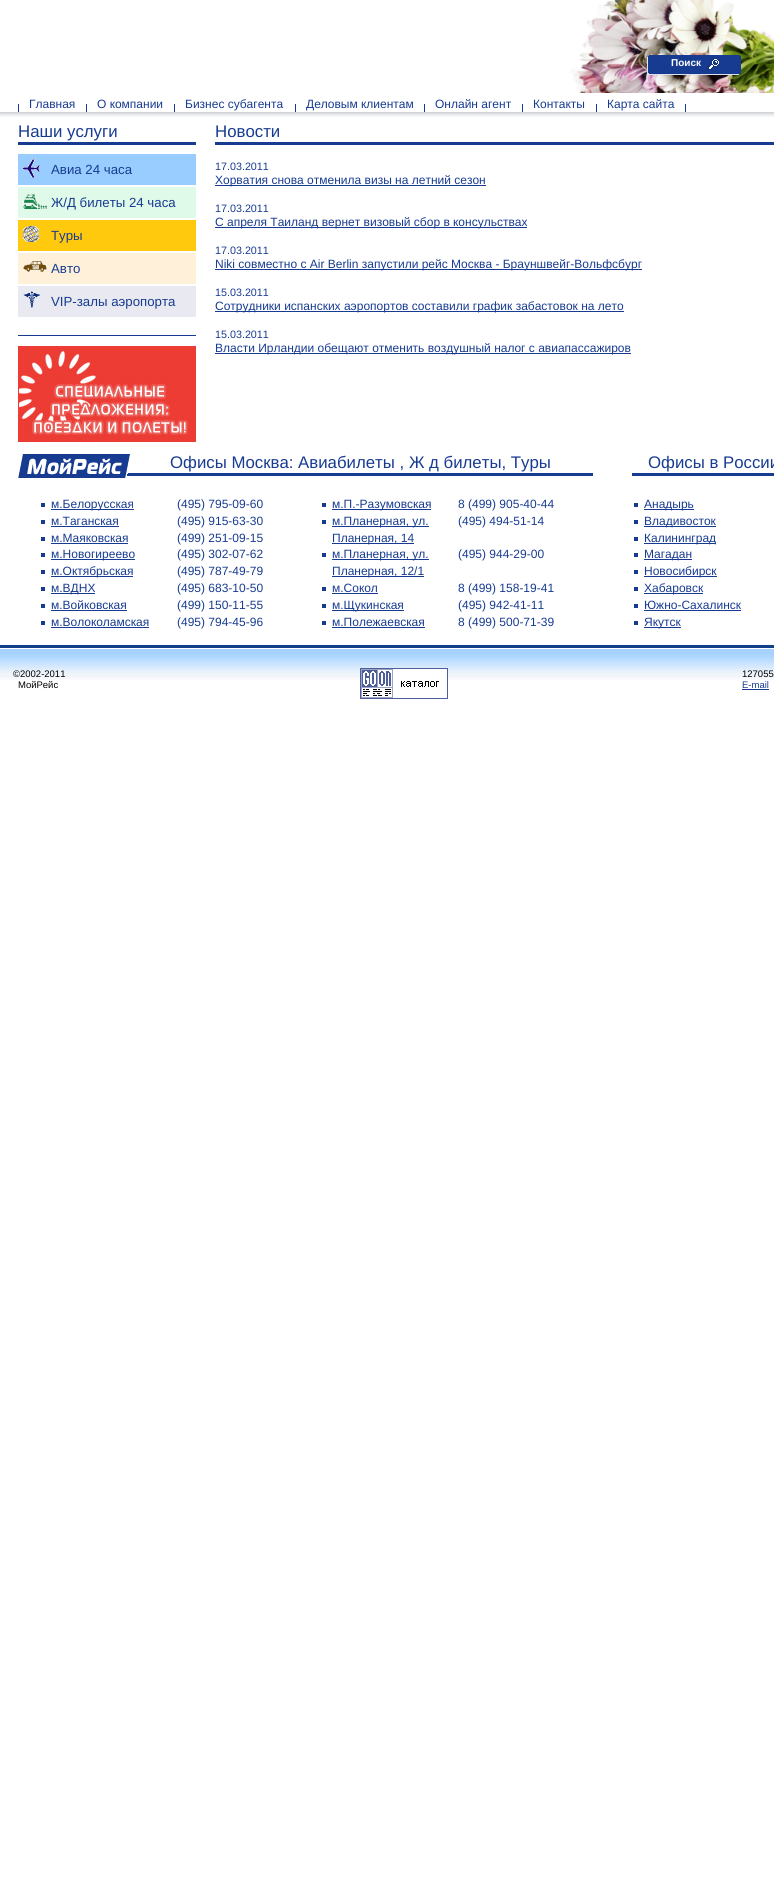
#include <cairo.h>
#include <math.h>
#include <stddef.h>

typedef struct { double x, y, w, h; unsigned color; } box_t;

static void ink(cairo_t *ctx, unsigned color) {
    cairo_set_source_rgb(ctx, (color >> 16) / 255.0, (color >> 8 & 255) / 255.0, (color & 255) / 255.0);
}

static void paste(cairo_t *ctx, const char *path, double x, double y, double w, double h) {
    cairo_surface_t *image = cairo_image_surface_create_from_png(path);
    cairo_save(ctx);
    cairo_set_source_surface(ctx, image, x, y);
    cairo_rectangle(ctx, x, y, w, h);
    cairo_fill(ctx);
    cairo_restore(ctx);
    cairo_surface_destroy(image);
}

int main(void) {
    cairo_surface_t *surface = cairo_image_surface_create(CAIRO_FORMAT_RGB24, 774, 1888);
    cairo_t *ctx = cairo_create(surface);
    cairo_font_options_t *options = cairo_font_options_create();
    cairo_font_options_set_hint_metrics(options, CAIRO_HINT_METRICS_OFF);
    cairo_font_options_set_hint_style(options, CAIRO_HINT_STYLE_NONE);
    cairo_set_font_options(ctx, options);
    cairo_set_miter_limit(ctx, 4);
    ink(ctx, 0xFFFFFF);
    cairo_paint(ctx);
    paste(ctx, "media/1.png", 571, 0, 203, 93);
    paste(ctx, "media/2.png", 647, 55, 94, 20);
    cairo_select_font_face(ctx, "Liberation Sans", CAIRO_FONT_SLANT_NORMAL, CAIRO_FONT_WEIGHT_BOLD);
    cairo_set_font_size(ctx, 10);
    ink(ctx, 0xFFFFFF);
    cairo_move_to(ctx, 671, 66);
    cairo_show_text(ctx, "Поиск");
    paste(ctx, "media/3.png", 0, 112, 774, 5);
    ink(ctx, 0x173B91);
    cairo_rectangle(ctx, 685, 104, 1, 8);
    cairo_fill(ctx);
    cairo_rectangle(ctx, 18, 104, 1, 8);
    cairo_fill(ctx);
    cairo_select_font_face(ctx, "Liberation Sans", CAIRO_FONT_SLANT_NORMAL, CAIRO_FONT_WEIGHT_NORMAL);
    cairo_set_font_size(ctx, 12);
    cairo_move_to(ctx, 29, 108);
    cairo_show_text(ctx, "Главная");
    cairo_rectangle(ctx, 86, 104, 1, 8);
    cairo_fill(ctx);
    cairo_move_to(ctx, 97, 108);
    cairo_show_text(ctx, "О компании");
    cairo_rectangle(ctx, 174, 104, 1, 8);
    cairo_fill(ctx);
    cairo_move_to(ctx, 185, 108);
    cairo_show_text(ctx, "Бизнес субагента");
    cairo_rectangle(ctx, 295, 104, 1, 8);
    cairo_fill(ctx);
    cairo_move_to(ctx, 306, 108);
    cairo_show_text(ctx, "Деловым клиентам");
    cairo_rectangle(ctx, 424, 104, 1, 8);
    cairo_fill(ctx);
    cairo_move_to(ctx, 435, 108);
    cairo_show_text(ctx, "Онлайн агент");
    cairo_rectangle(ctx, 522, 104, 1, 8);
    cairo_fill(ctx);
    cairo_move_to(ctx, 533, 108);
    cairo_show_text(ctx, "Контакты");
    cairo_rectangle(ctx, 596, 104, 1, 8);
    cairo_fill(ctx);
    cairo_move_to(ctx, 607, 108);
    cairo_show_text(ctx, "Карта сайта");
    cairo_rectangle(ctx, 18, 142, 178, 3);
    cairo_fill(ctx);
    cairo_set_font_size(ctx, 16.8);
    cairo_move_to(ctx, 18, 137);
    cairo_show_text(ctx, "Наши услуги");
    cairo_rectangle(ctx, 18, 335, 178, 1);
    cairo_fill(ctx);
    ink(ctx, 0x99CCFF);
    cairo_rectangle(ctx, 18, 154, 178, 31);
    cairo_fill(ctx);
    paste(ctx, "media/4.png", 23, 159, 17, 19);
    cairo_set_font_size(ctx, 13.25);
    ink(ctx, 0x173B91);
    cairo_move_to(ctx, 51, 174);
    cairo_show_text(ctx, "Авиа 24 часа");
    ink(ctx, 0xE0FAE9);
    cairo_rectangle(ctx, 18, 187, 178, 31);
    cairo_fill(ctx);
    paste(ctx, "media/5.png", 23, 194, 24, 15);
    ink(ctx, 0x173B91);
    cairo_move_to(ctx, 51, 207);
    cairo_show_text(ctx, "Ж/Д билеты 24 часа");
    ink(ctx, 0xFFC90E);
    cairo_rectangle(ctx, 18, 220, 178, 31);
    cairo_fill(ctx);
    paste(ctx, "media/6.png", 23, 226, 16, 16);
    ink(ctx, 0x173B91);
    cairo_move_to(ctx, 51, 240);
    cairo_show_text(ctx, "Туры");
    ink(ctx, 0xFFF1D9);
    cairo_rectangle(ctx, 18, 253, 178, 31);
    cairo_fill(ctx);
    paste(ctx, "media/7.png", 23, 261, 24, 11);
    ink(ctx, 0x173B91);
    cairo_move_to(ctx, 51, 273);
    cairo_show_text(ctx, "Авто");
    ink(ctx, 0xE9EAF1);
    cairo_rectangle(ctx, 18, 286, 178, 31);
    cairo_fill(ctx);
    paste(ctx, "media/8.png", 23, 291, 17, 17);
    ink(ctx, 0x173B91);
    cairo_move_to(ctx, 51, 306);
    cairo_show_text(ctx, "VIP-залы аэропорта");
    paste(ctx, "media/9.png", 18, 346, 178, 96);
    cairo_rectangle(ctx, 215, 142, 559, 3);
    cairo_fill(ctx);
    cairo_set_font_size(ctx, 16.8);
    cairo_move_to(ctx, 215, 137);
    cairo_show_text(ctx, "Новости");
    cairo_set_font_size(ctx, 10.75);
    cairo_move_to(ctx, 215, 170);
    cairo_show_text(ctx, "17.03.2011");
    cairo_rectangle(ctx, 215, 185, 271, 1);
    cairo_fill(ctx);
    cairo_set_font_size(ctx, 12);
    cairo_move_to(ctx, 215, 184);
    cairo_show_text(ctx, "Хорватия снова отменила визы на летний сезон");
    cairo_set_font_size(ctx, 10.75);
    cairo_move_to(ctx, 215, 212);
    cairo_show_text(ctx, "17.03.2011");
    cairo_rectangle(ctx, 215, 227, 312, 1);
    cairo_fill(ctx);
    cairo_set_font_size(ctx, 12);
    cairo_move_to(ctx, 215, 226);
    cairo_show_text(ctx, "С апреля Таиланд вернет визовый сбор в консульствах");
    cairo_set_font_size(ctx, 10.75);
    cairo_move_to(ctx, 215, 254);
    cairo_show_text(ctx, "17.03.2011");
    cairo_rectangle(ctx, 215, 269, 427, 1);
    cairo_fill(ctx);
    cairo_set_font_size(ctx, 12);
    cairo_move_to(ctx, 215, 268);
    cairo_show_text(ctx, "Niki совместно с Air Berlin запустили рейс Москва - Брауншвейг-Вольфсбург");
    cairo_set_font_size(ctx, 10.75);
    cairo_move_to(ctx, 215, 296);
    cairo_show_text(ctx, "15.03.2011");
    cairo_rectangle(ctx, 215, 311, 409, 1);
    cairo_fill(ctx);
    cairo_set_font_size(ctx, 12);
    cairo_move_to(ctx, 215, 310);
    cairo_show_text(ctx, "Сотрудники испанских аэропортов составили график забастовок на лето");
    cairo_set_font_size(ctx, 10.75);
    cairo_move_to(ctx, 215, 338);
    cairo_show_text(ctx, "15.03.2011");
    cairo_rectangle(ctx, 215, 353, 416, 1);
    cairo_fill(ctx);
    cairo_set_font_size(ctx, 12);
    cairo_move_to(ctx, 215, 352);
    cairo_show_text(ctx, "Власти Ирландии обещают отменить воздушный налог с авиапассажиров");
    cairo_rectangle(ctx, 127, 473, 466, 3);
    cairo_fill(ctx);
    paste(ctx, "media/10.png", 18, 454, 112, 24);
    cairo_set_font_size(ctx, 16.8);
    cairo_move_to(ctx, 170, 468);
    cairo_show_text(ctx, "Офисы Москва: Авиабилеты , Ж д билеты, Туры");
    cairo_rectangle(ctx, 41, 503, 4, 4);
    cairo_fill(ctx);
    cairo_rectangle(ctx, 51, 509, 83, 1);
    cairo_fill(ctx);
    cairo_set_font_size(ctx, 12);
    cairo_move_to(ctx, 51, 508);
    cairo_show_text(ctx, "м.Белорусская");
    cairo_move_to(ctx, 177, 508);
    cairo_show_text(ctx, "(495) 795-09-60");
    cairo_rectangle(ctx, 41, 520, 4, 4);
    cairo_fill(ctx);
    cairo_move_to(ctx, 51, 525);
    cairo_show_text(ctx, "м.Таганская");
    cairo_rectangle(ctx, 51, 526, 68, 1);
    cairo_fill(ctx);
    cairo_move_to(ctx, 177, 525);
    cairo_show_text(ctx, "(495) 915-63-30");
    cairo_rectangle(ctx, 41, 537, 4, 4);
    cairo_fill(ctx);
    cairo_move_to(ctx, 51, 542);
    cairo_show_text(ctx, "м.Маяковская");
    cairo_rectangle(ctx, 51, 543, 77, 1);
    cairo_fill(ctx);
    cairo_move_to(ctx, 177, 542);
    cairo_show_text(ctx, "(499) 251-09-15");
    cairo_rectangle(ctx, 41, 553, 4, 4);
    cairo_fill(ctx);
    cairo_rectangle(ctx, 51, 559, 84, 1);
    cairo_fill(ctx);
    cairo_move_to(ctx, 51, 558);
    cairo_show_text(ctx, "м.Новогиреево");
    cairo_move_to(ctx, 177, 558);
    cairo_show_text(ctx, "(495) 302-07-62");
    cairo_rectangle(ctx, 41, 570, 4, 4);
    cairo_fill(ctx);
    cairo_rectangle(ctx, 51, 576, 82, 1);
    cairo_fill(ctx);
    cairo_move_to(ctx, 51, 575);
    cairo_show_text(ctx, "м.Октябрьская");
    cairo_move_to(ctx, 177, 575);
    cairo_show_text(ctx, "(495) 787-49-79");
    cairo_rectangle(ctx, 41, 587, 4, 4);
    cairo_fill(ctx);
    cairo_rectangle(ctx, 51, 593, 44, 1);
    cairo_fill(ctx);
    cairo_move_to(ctx, 51, 592);
    cairo_show_text(ctx, "м.ВДНХ");
    cairo_move_to(ctx, 177, 592);
    cairo_show_text(ctx, "(495) 683-10-50");
    cairo_rectangle(ctx, 41, 604, 4, 4);
    cairo_fill(ctx);
    cairo_move_to(ctx, 51, 609);
    cairo_show_text(ctx, "м.Войковская");
    cairo_rectangle(ctx, 51, 610, 76, 1);
    cairo_fill(ctx);
    cairo_move_to(ctx, 177, 609);
    cairo_show_text(ctx, "(499) 150-11-55");
    cairo_rectangle(ctx, 41, 621, 4, 4);
    cairo_fill(ctx);
    cairo_move_to(ctx, 51, 626);
    cairo_show_text(ctx, "м.Волоколамская");
    cairo_rectangle(ctx, 51, 627, 98, 1);
    cairo_fill(ctx);
    cairo_move_to(ctx, 177, 626);
    cairo_show_text(ctx, "(495) 794-45-96");
    cairo_rectangle(ctx, 322, 503, 4, 4);
    cairo_fill(ctx);
    cairo_rectangle(ctx, 332, 509, 99, 1);
    cairo_fill(ctx);
    cairo_move_to(ctx, 332, 508);
    cairo_show_text(ctx, "м.П.-Разумовская");
    cairo_move_to(ctx, 458, 508);
    cairo_show_text(ctx, "8 (499) 905-40-44");
    cairo_rectangle(ctx, 322, 520, 4, 4);
    cairo_fill(ctx);
    cairo_rectangle(ctx, 332, 526, 97, 1);
    cairo_fill(ctx);
    cairo_move_to(ctx, 332, 525);
    cairo_show_text(ctx, "м.Планерная, ул.");
    cairo_rectangle(ctx, 332, 543, 82, 1);
    cairo_fill(ctx);
    cairo_move_to(ctx, 332, 542);
    cairo_show_text(ctx, "Планерная, 14");
    cairo_move_to(ctx, 458, 525);
    cairo_show_text(ctx, "(495) 494-51-14");
    cairo_rectangle(ctx, 322, 553, 4, 4);
    cairo_fill(ctx);
    cairo_rectangle(ctx, 332, 559, 97, 1);
    cairo_fill(ctx);
    cairo_move_to(ctx, 332, 558);
    cairo_show_text(ctx, "м.Планерная, ул.");
    cairo_rectangle(ctx, 332, 576, 92, 1);
    cairo_fill(ctx);
    cairo_move_to(ctx, 332, 575);
    cairo_show_text(ctx, "Планерная, 12/1");
    cairo_move_to(ctx, 458, 558);
    cairo_show_text(ctx, "(495) 944-29-00");
    cairo_rectangle(ctx, 322, 587, 4, 4);
    cairo_fill(ctx);
    cairo_move_to(ctx, 332, 592);
    cairo_show_text(ctx, "м.Сокол");
    cairo_rectangle(ctx, 332, 593, 46, 1);
    cairo_fill(ctx);
    cairo_move_to(ctx, 458, 592);
    cairo_show_text(ctx, "8 (499) 158-19-41");
    cairo_rectangle(ctx, 322, 604, 4, 4);
    cairo_fill(ctx);
    cairo_rectangle(ctx, 332, 610, 72, 1);
    cairo_fill(ctx);
    cairo_move_to(ctx, 332, 609);
    cairo_show_text(ctx, "м.Щукинская");
    cairo_move_to(ctx, 458, 609);
    cairo_show_text(ctx, "(495) 942-41-11");
    cairo_rectangle(ctx, 322, 621, 4, 4);
    cairo_fill(ctx);
    cairo_move_to(ctx, 332, 626);
    cairo_show_text(ctx, "м.Полежаевская");
    cairo_rectangle(ctx, 332, 627, 93, 1);
    cairo_fill(ctx);
    cairo_move_to(ctx, 458, 626);
    cairo_show_text(ctx, "8 (499) 500-71-39");
    cairo_rectangle(ctx, 632, 473, 142, 3);
    cairo_fill(ctx);
    cairo_set_font_size(ctx, 16.8);
    cairo_move_to(ctx, 648, 468);
    cairo_show_text(ctx, "Офисы в России");
    cairo_rectangle(ctx, 634, 503, 4, 4);
    cairo_fill(ctx);
    cairo_rectangle(ctx, 644, 509, 50, 1);
    cairo_fill(ctx);
    cairo_set_font_size(ctx, 12);
    cairo_move_to(ctx, 644, 508);
    cairo_show_text(ctx, "Анадырь");
    cairo_rectangle(ctx, 634, 520, 4, 4);
    cairo_fill(ctx);
    cairo_rectangle(ctx, 644, 526, 72, 1);
    cairo_fill(ctx);
    cairo_move_to(ctx, 644, 525);
    cairo_show_text(ctx, "Владивосток");
    cairo_rectangle(ctx, 634, 537, 4, 4);
    cairo_fill(ctx);
    cairo_rectangle(ctx, 644, 543, 72, 1);
    cairo_fill(ctx);
    cairo_move_to(ctx, 644, 542);
    cairo_show_text(ctx, "Калининград");
    cairo_rectangle(ctx, 634, 553, 4, 4);
    cairo_fill(ctx);
    cairo_rectangle(ctx, 644, 559, 48, 1);
    cairo_fill(ctx);
    cairo_move_to(ctx, 644, 558);
    cairo_show_text(ctx, "Магадан");
    cairo_rectangle(ctx, 634, 570, 4, 4);
    cairo_fill(ctx);
    cairo_rectangle(ctx, 644, 576, 73, 1);
    cairo_fill(ctx);
    cairo_move_to(ctx, 644, 575);
    cairo_show_text(ctx, "Новосибирск");
    cairo_rectangle(ctx, 634, 587, 4, 4);
    cairo_fill(ctx);
    cairo_rectangle(ctx, 644, 593, 59, 1);
    cairo_fill(ctx);
    cairo_move_to(ctx, 644, 592);
    cairo_show_text(ctx, "Хабаровск");
    cairo_rectangle(ctx, 634, 604, 4, 4);
    cairo_fill(ctx);
    cairo_move_to(ctx, 644, 609);
    cairo_show_text(ctx, "Южно-Сахалинск");
    {
        static const box_t items[] = {
            {644, 610, 97, 1, 0x173B91},
            {634, 621, 4, 4, 0x173B91},
            {644, 627, 37, 1, 0x173B91},
        };
        for (size_t i = 0; i < sizeof items / sizeof *items; i++) {
            ink(ctx, items[i].color);
            cairo_rectangle(ctx, items[i].x, items[i].y, items[i].w, items[i].h);
            cairo_fill(ctx);
        }
    }
    cairo_move_to(ctx, 644, 626);
    cairo_show_text(ctx, "Якутск");
    paste(ctx, "media/11.png", 0, 649, 774, 31);
    ink(ctx, 0x113F8C);
    cairo_rectangle(ctx, 0, 645, 774, 3);
    cairo_fill(ctx);
    cairo_set_font_size(ctx, 9.5);
    ink(ctx, 0x000000);
    cairo_move_to(ctx, 13, 677);
    cairo_show_text(ctx, "©2002-2011");
    cairo_move_to(ctx, 18, 688);
    cairo_show_text(ctx, "МойРейс");
    paste(ctx, "media/12.png", 360, 668, 88, 31);
    cairo_move_to(ctx, 742, 677);
    cairo_show_text(ctx, "127055");
    ink(ctx, 0x173B91);
    cairo_move_to(ctx, 742, 688);
    cairo_show_text(ctx, "E-mail");
    cairo_rectangle(ctx, 742, 689, 27, 1);
    cairo_fill(ctx);
    cairo_surface_write_to_png(surface, "image.png");
    cairo_font_options_destroy(options);
    cairo_destroy(ctx);
    cairo_surface_destroy(surface);
    return 0;
}
